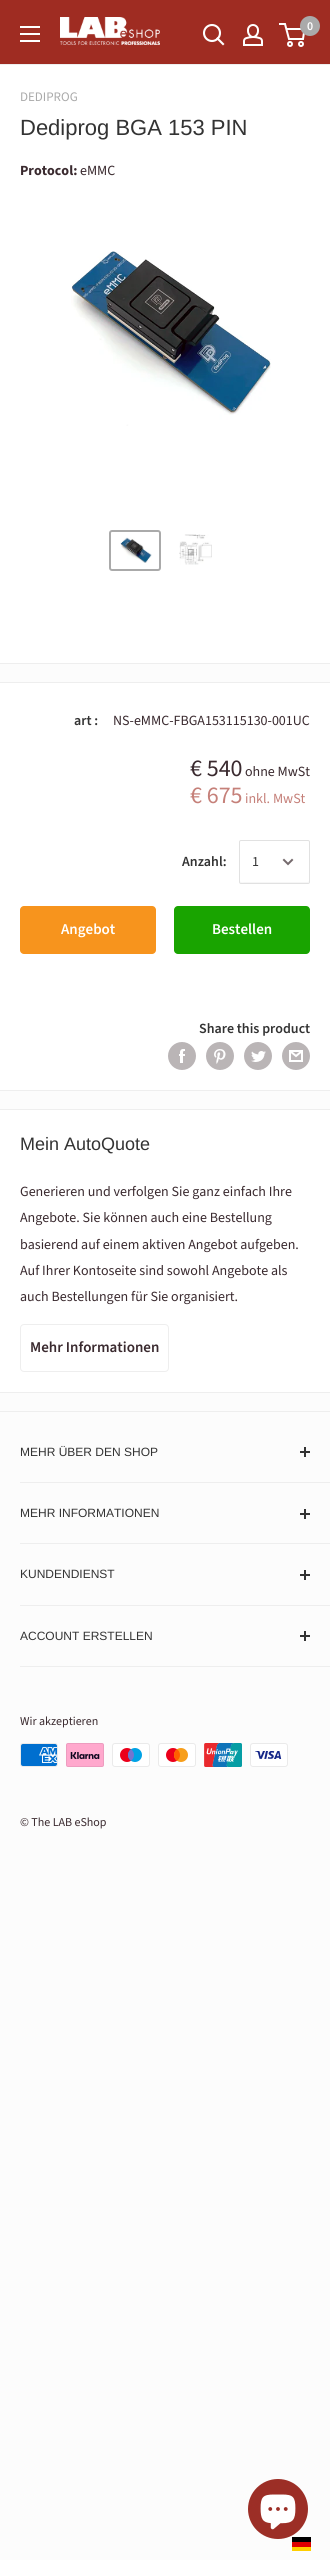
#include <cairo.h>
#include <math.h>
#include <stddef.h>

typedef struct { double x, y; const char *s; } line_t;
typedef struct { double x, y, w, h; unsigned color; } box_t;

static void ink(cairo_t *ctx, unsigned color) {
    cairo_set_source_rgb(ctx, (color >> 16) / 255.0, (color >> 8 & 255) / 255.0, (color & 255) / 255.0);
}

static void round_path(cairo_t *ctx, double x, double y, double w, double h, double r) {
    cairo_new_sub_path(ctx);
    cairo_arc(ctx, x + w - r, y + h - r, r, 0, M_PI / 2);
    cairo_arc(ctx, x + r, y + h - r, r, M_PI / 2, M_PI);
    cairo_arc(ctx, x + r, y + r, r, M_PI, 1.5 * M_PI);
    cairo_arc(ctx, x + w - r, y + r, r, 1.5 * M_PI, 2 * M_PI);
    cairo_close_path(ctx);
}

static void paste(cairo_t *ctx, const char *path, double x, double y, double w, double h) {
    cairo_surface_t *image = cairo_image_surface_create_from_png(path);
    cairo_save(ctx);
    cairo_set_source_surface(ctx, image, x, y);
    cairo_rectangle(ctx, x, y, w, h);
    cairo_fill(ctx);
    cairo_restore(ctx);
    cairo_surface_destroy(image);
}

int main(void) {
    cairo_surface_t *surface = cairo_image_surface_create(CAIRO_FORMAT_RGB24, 330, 2560);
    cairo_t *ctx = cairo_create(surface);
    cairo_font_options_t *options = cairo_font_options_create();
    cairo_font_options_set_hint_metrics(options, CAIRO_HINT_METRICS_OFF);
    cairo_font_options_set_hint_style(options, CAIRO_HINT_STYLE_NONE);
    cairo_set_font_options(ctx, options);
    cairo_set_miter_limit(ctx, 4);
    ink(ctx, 0xFCFCFC);
    cairo_paint(ctx);
    ink(ctx, 0x9F2C22);
    cairo_rectangle(ctx, 0, 0, 330, 64);
    cairo_fill(ctx);
    paste(ctx, "media/1.png", 20, 26, 20, 16);
    paste(ctx, "media/2.png", 60, 17, 100, 28);
    cairo_new_path(ctx);
    cairo_move_to(ctx, 223, 44);
    cairo_line_to(ctx, 217.5, 38.5);
    ink(ctx, 0xFFFFFF);
    cairo_set_line_width(ctx, 2.1);
    cairo_set_line_cap(ctx, CAIRO_LINE_CAP_SQUARE);
    cairo_stroke(ctx);
    cairo_arc(ctx, 212, 33, 8, 0, 2 * M_PI);
    cairo_set_line_cap(ctx, CAIRO_LINE_CAP_BUTT);
    cairo_stroke(ctx);
    paste(ctx, "media/3.png", 243, 24, 20, 22);
    cairo_arc(ctx, 290, 44, 2, 0, 2 * M_PI);
    cairo_set_line_width(ctx, 2);
    cairo_stroke(ctx);
    cairo_arc(ctx, 301, 44, 2, 0, 2 * M_PI);
    cairo_stroke(ctx);
    cairo_new_path(ctx);
    cairo_move_to(ctx, 286.5, 29);
    cairo_line_to(ctx, 304.5, 29);
    cairo_line_to(ctx, 303, 39);
    cairo_line_to(ctx, 289, 39);
    cairo_line_to(ctx, 285, 24);
    cairo_line_to(ctx, 279, 24);
    cairo_stroke(ctx);
    ink(ctx, 0xAAAAAA);
    cairo_arc(ctx, 310, 26, 10, 0, 2 * M_PI);
    cairo_fill(ctx);
    cairo_select_font_face(ctx, "Source Sans Pro SemiBold", CAIRO_FONT_SLANT_NORMAL, CAIRO_FONT_WEIGHT_NORMAL);
    cairo_set_font_size(ctx, 12);
    ink(ctx, 0xFFFFFF);
    cairo_move_to(ctx, 307, 30);
    cairo_show_text(ctx, "0");
    {
        static const box_t items[] = {
            {0, 65, 330, 598, 0xFFFFFF},
            {0, 64, 330, 1, 0xEEEEEE},
            {0, 663, 330, 1, 0xEEEEEE},
        };
        for (size_t i = 0; i < sizeof items / sizeof *items; i++) {
            ink(ctx, items[i].color);
            cairo_rectangle(ctx, items[i].x, items[i].y, items[i].w, items[i].h);
            cairo_fill(ctx);
        }
    }
    cairo_select_font_face(ctx, "Source Sans Pro", CAIRO_FONT_SLANT_NORMAL, CAIRO_FONT_WEIGHT_NORMAL);
    cairo_set_font_size(ctx, 13);
    ink(ctx, 0xAAAAAA);
    cairo_move_to(ctx, 20, 101);
    cairo_show_text(ctx, "DEDIPROG");
    cairo_select_font_face(ctx, "Liberation Sans", CAIRO_FONT_SLANT_NORMAL, CAIRO_FONT_WEIGHT_NORMAL);
    cairo_set_font_size(ctx, 22);
    ink(ctx, 0x333333);
    cairo_move_to(ctx, 20, 135);
    cairo_show_text(ctx, "Dediprog BGA 153 PIN");
    cairo_select_font_face(ctx, "Source Sans Pro", CAIRO_FONT_SLANT_NORMAL, CAIRO_FONT_WEIGHT_BOLD);
    cairo_set_font_size(ctx, 14);
    ink(ctx, 0x3A2A2F);
    cairo_move_to(ctx, 20, 175);
    cairo_show_text(ctx, "Protocol:");
    cairo_select_font_face(ctx, "Source Sans Pro", CAIRO_FONT_SLANT_NORMAL, CAIRO_FONT_WEIGHT_NORMAL);
    cairo_move_to(ctx, 80, 175);
    cairo_show_text(ctx, "eMMC");
    paste(ctx, "media/4.png", 71, 251, 200, 175);
    round_path(ctx, 110, 531, 50, 39, 2);
    ink(ctx, 0xAAAAAA);
    cairo_stroke(ctx);
    paste(ctx, "media/5.png", 120, 537, 32, 26);
    paste(ctx, "media/6.png", 179, 534, 33, 31);
    {
        static const box_t items[] = {
            {0, 683, 330, 407, 0xFFFFFF},
            {0, 682, 330, 1, 0xEEEEEE},
            {0, 1090, 330, 1, 0xEEEEEE},
        };
        for (size_t i = 0; i < sizeof items / sizeof *items; i++) {
            ink(ctx, items[i].color);
            cairo_rectangle(ctx, items[i].x, items[i].y, items[i].w, items[i].h);
            cairo_fill(ctx);
        }
    }
    cairo_select_font_face(ctx, "Source Sans Pro SemiBold", CAIRO_FONT_SLANT_NORMAL, CAIRO_FONT_WEIGHT_NORMAL);
    ink(ctx, 0x333333);
    cairo_move_to(ctx, 74, 725);
    cairo_show_text(ctx, "art :");
    cairo_select_font_face(ctx, "Source Sans Pro", CAIRO_FONT_SLANT_NORMAL, CAIRO_FONT_WEIGHT_NORMAL);
    ink(ctx, 0x3A2A2F);
    cairo_move_to(ctx, 113, 725);
    cairo_show_text(ctx, "NS-eMMC-FBGA153115130-001UC");
    cairo_set_font_size(ctx, 24);
    cairo_move_to(ctx, 190, 776);
    cairo_show_text(ctx, "€ 540");
    cairo_set_font_size(ctx, 14);
    cairo_move_to(ctx, 245, 776);
    cairo_show_text(ctx, "ohne MwSt");
    cairo_set_font_size(ctx, 24);
    ink(ctx, 0xC58079);
    cairo_move_to(ctx, 190, 803);
    cairo_show_text(ctx, "€ 675");
    cairo_set_font_size(ctx, 14);
    cairo_move_to(ctx, 245, 803);
    cairo_show_text(ctx, "inkl. MwSt");
    cairo_select_font_face(ctx, "Source Sans Pro SemiBold", CAIRO_FONT_SLANT_NORMAL, CAIRO_FONT_WEIGHT_NORMAL);
    ink(ctx, 0x333333);
    cairo_move_to(ctx, 182, 866);
    cairo_show_text(ctx, "Anzahl:");
    ink(ctx, 0xF6F6F6);
    cairo_new_path(ctx);
    cairo_move_to(ctx, 240, 881);
    cairo_curve_to(ctx, 240, 882, 240, 883, 241, 883);
    cairo_line_to(ctx, 297, 883);
    cairo_curve_to(ctx, 300, 883, 309, 886, 309, 881);
    cairo_line_to(ctx, 308, 882);
    cairo_line_to(ctx, 245, 882);
    cairo_curve_to(ctx, 244, 882, 241, 883, 240, 881);
    cairo_close_path(ctx);
    cairo_fill(ctx);
    round_path(ctx, 239.5, 840.5, 70, 43, 1.5);
    ink(ctx, 0xE1E1E1);
    cairo_set_line_width(ctx, 1);
    cairo_stroke(ctx);
    cairo_select_font_face(ctx, "Source Sans Pro", CAIRO_FONT_SLANT_NORMAL, CAIRO_FONT_WEIGHT_NORMAL);
    ink(ctx, 0x333333);
    cairo_move_to(ctx, 252, 866);
    cairo_show_text(ctx, "1");
    cairo_new_path(ctx);
    cairo_move_to(ctx, 292, 860);
    cairo_line_to(ctx, 288, 864);
    cairo_line_to(ctx, 284, 860);
    ink(ctx, 0x756A6D);
    cairo_set_line_width(ctx, 2);
    cairo_set_line_cap(ctx, CAIRO_LINE_CAP_SQUARE);
    cairo_stroke(ctx);
    ink(ctx, 0xF7941D);
    round_path(ctx, 20, 906, 136, 48, 4);
    cairo_fill(ctx);
    cairo_select_font_face(ctx, "Source Sans Pro SemiBold", CAIRO_FONT_SLANT_NORMAL, CAIRO_FONT_WEIGHT_NORMAL);
    cairo_set_font_size(ctx, 15);
    ink(ctx, 0xFFFFFF);
    cairo_move_to(ctx, 61, 934);
    cairo_show_text(ctx, "Angebot");
    ink(ctx, 0x19A400);
    round_path(ctx, 174, 906, 136, 48, 4);
    cairo_fill(ctx);
    ink(ctx, 0xFFFFFF);
    cairo_move_to(ctx, 212, 934);
    cairo_show_text(ctx, "Bestellen");
    cairo_set_font_size(ctx, 14);
    ink(ctx, 0x333333);
    cairo_move_to(ctx, 199, 1033);
    cairo_show_text(ctx, "Share this product");
    paste(ctx, "media/7.png", 168, 1042, 28, 28);
    paste(ctx, "media/8.png", 206, 1042, 28, 28);
    paste(ctx, "media/9.png", 244, 1042, 28, 28);
    paste(ctx, "media/10.png", 282, 1042, 28, 28);
    {
        static const box_t items[] = {
            {0, 1110, 330, 282, 0xFFFFFF},
            {0, 1109, 330, 1, 0xEEEEEE},
            {0, 1392, 330, 1, 0xEEEEEE},
        };
        for (size_t i = 0; i < sizeof items / sizeof *items; i++) {
            ink(ctx, items[i].color);
            cairo_rectangle(ctx, items[i].x, items[i].y, items[i].w, items[i].h);
            cairo_fill(ctx);
        }
    }
    cairo_select_font_face(ctx, "Liberation Sans", CAIRO_FONT_SLANT_NORMAL, CAIRO_FONT_WEIGHT_NORMAL);
    cairo_set_font_size(ctx, 18);
    ink(ctx, 0x333333);
    cairo_move_to(ctx, 20, 1150);
    cairo_show_text(ctx, "Mein AutoQuote");
    cairo_select_font_face(ctx, "Source Sans Pro", CAIRO_FONT_SLANT_NORMAL, CAIRO_FONT_WEIGHT_NORMAL);
    cairo_set_font_size(ctx, 14);
    ink(ctx, 0x3A2A2F);
    {
        static const line_t items[] = {
            {20, 1196, "Generieren und verfolgen Sie ganz einfach Ihre"},
            {20, 1222, "Angebote. Sie können auch eine Bestellung"},
            {20, 1249, "basierend auf einem aktiven Angebot aufgeben."},
            {20, 1275, "Auf Ihrer Kontoseite sind sowohl Angebote als"},
            {20, 1301, "auch Bestellungen für Sie organisiert."},
        };
        for (size_t i = 0; i < sizeof items / sizeof *items; i++) {
            cairo_move_to(ctx, items[i].x, items[i].y);
            cairo_show_text(ctx, items[i].s);
        }
    }
    round_path(ctx, 20.5, 1324.5, 148, 47, 3.5);
    ink(ctx, 0xEEEEEE);
    cairo_set_line_width(ctx, 1);
    cairo_set_line_cap(ctx, CAIRO_LINE_CAP_BUTT);
    cairo_stroke(ctx);
    cairo_select_font_face(ctx, "Source Sans Pro SemiBold", CAIRO_FONT_SLANT_NORMAL, CAIRO_FONT_WEIGHT_NORMAL);
    cairo_set_font_size(ctx, 15);
    ink(ctx, 0x3A2A2F);
    cairo_move_to(ctx, 30, 1352);
    cairo_show_text(ctx, "Mehr Informationen");
    ink(ctx, 0xEEEEEE);
    cairo_rectangle(ctx, 0, 1411, 330, 1);
    cairo_fill(ctx);
    cairo_rectangle(ctx, 20, 1482, 310, 1);
    cairo_fill(ctx);
    cairo_select_font_face(ctx, "Liberation Sans", CAIRO_FONT_SLANT_NORMAL, CAIRO_FONT_WEIGHT_NORMAL);
    cairo_set_font_size(ctx, 12);
    ink(ctx, 0x333333);
    cairo_move_to(ctx, 20, 1456);
    cairo_show_text(ctx, "MEHR ÜBER DEN SHOP");
    {
        static const box_t items[] = {
            {304, 1447, 2, 10, 0x333333},
            {300, 1451, 10, 2, 0x333333},
            {20, 1543, 310, 1, 0xEEEEEE},
        };
        for (size_t i = 0; i < sizeof items / sizeof *items; i++) {
            ink(ctx, items[i].color);
            cairo_rectangle(ctx, items[i].x, items[i].y, items[i].w, items[i].h);
            cairo_fill(ctx);
        }
    }
    ink(ctx, 0x333333);
    cairo_move_to(ctx, 20, 1517);
    cairo_show_text(ctx, "MEHR INFORMATIONEN");
    {
        static const box_t items[] = {
            {304, 1509, 2, 10, 0x333333},
            {300, 1513, 10, 2, 0x333333},
            {20, 1605, 310, 1, 0xEEEEEE},
        };
        for (size_t i = 0; i < sizeof items / sizeof *items; i++) {
            ink(ctx, items[i].color);
            cairo_rectangle(ctx, items[i].x, items[i].y, items[i].w, items[i].h);
            cairo_fill(ctx);
        }
    }
    ink(ctx, 0x333333);
    cairo_move_to(ctx, 20, 1578);
    cairo_show_text(ctx, "KUNDENDIENST");
    {
        static const box_t items[] = {
            {304, 1570, 2, 10, 0x333333},
            {300, 1574, 10, 2, 0x333333},
            {20, 1666, 310, 1, 0xEEEEEE},
        };
        for (size_t i = 0; i < sizeof items / sizeof *items; i++) {
            ink(ctx, items[i].color);
            cairo_rectangle(ctx, items[i].x, items[i].y, items[i].w, items[i].h);
            cairo_fill(ctx);
        }
    }
    ink(ctx, 0x333333);
    cairo_move_to(ctx, 20, 1640);
    cairo_show_text(ctx, "ACCOUNT ERSTELLEN");
    cairo_rectangle(ctx, 304, 1631, 2, 10);
    cairo_fill(ctx);
    cairo_rectangle(ctx, 300, 1635, 10, 2);
    cairo_fill(ctx);
    cairo_select_font_face(ctx, "Source Sans Pro", CAIRO_FONT_SLANT_NORMAL, CAIRO_FONT_WEIGHT_NORMAL);
    ink(ctx, 0x3A2A2F);
    cairo_move_to(ctx, 20, 1725);
    cairo_show_text(ctx, "Wir akzeptieren");
    paste(ctx, "media/11.png", 20, 1743, 38, 24);
    paste(ctx, "media/12.png", 66, 1743, 38, 24);
    paste(ctx, "media/13.png", 112, 1743, 38, 24);
    paste(ctx, "media/14.png", 158, 1743, 38, 24);
    paste(ctx, "media/15.png", 204, 1743, 38, 24);
    paste(ctx, "media/16.png", 250, 1743, 38, 24);
    cairo_move_to(ctx, 20, 1826);
    cairo_show_text(ctx, "© The LAB eShop");
    ink(ctx, 0x000000);
    cairo_rectangle(ctx, 292, 2537, 19, 5);
    cairo_fill(ctx);
    ink(ctx, 0x9C2E26);
    cairo_arc(ctx, 278, 2509, 30, 0, 2 * M_PI);
    cairo_fill(ctx);
    paste(ctx, "media/17.png", 260, 2494, 36, 36);
    ink(ctx, 0xFFCE00);
    cairo_rectangle(ctx, 292, 2547, 19, 4);
    cairo_fill(ctx);
    ink(ctx, 0xDD0000);
    cairo_rectangle(ctx, 292, 2542, 19, 5);
    cairo_fill(ctx);
    cairo_surface_write_to_png(surface, "image.png");
    cairo_font_options_destroy(options);
    cairo_destroy(ctx);
    cairo_surface_destroy(surface);
    return 0;
}
